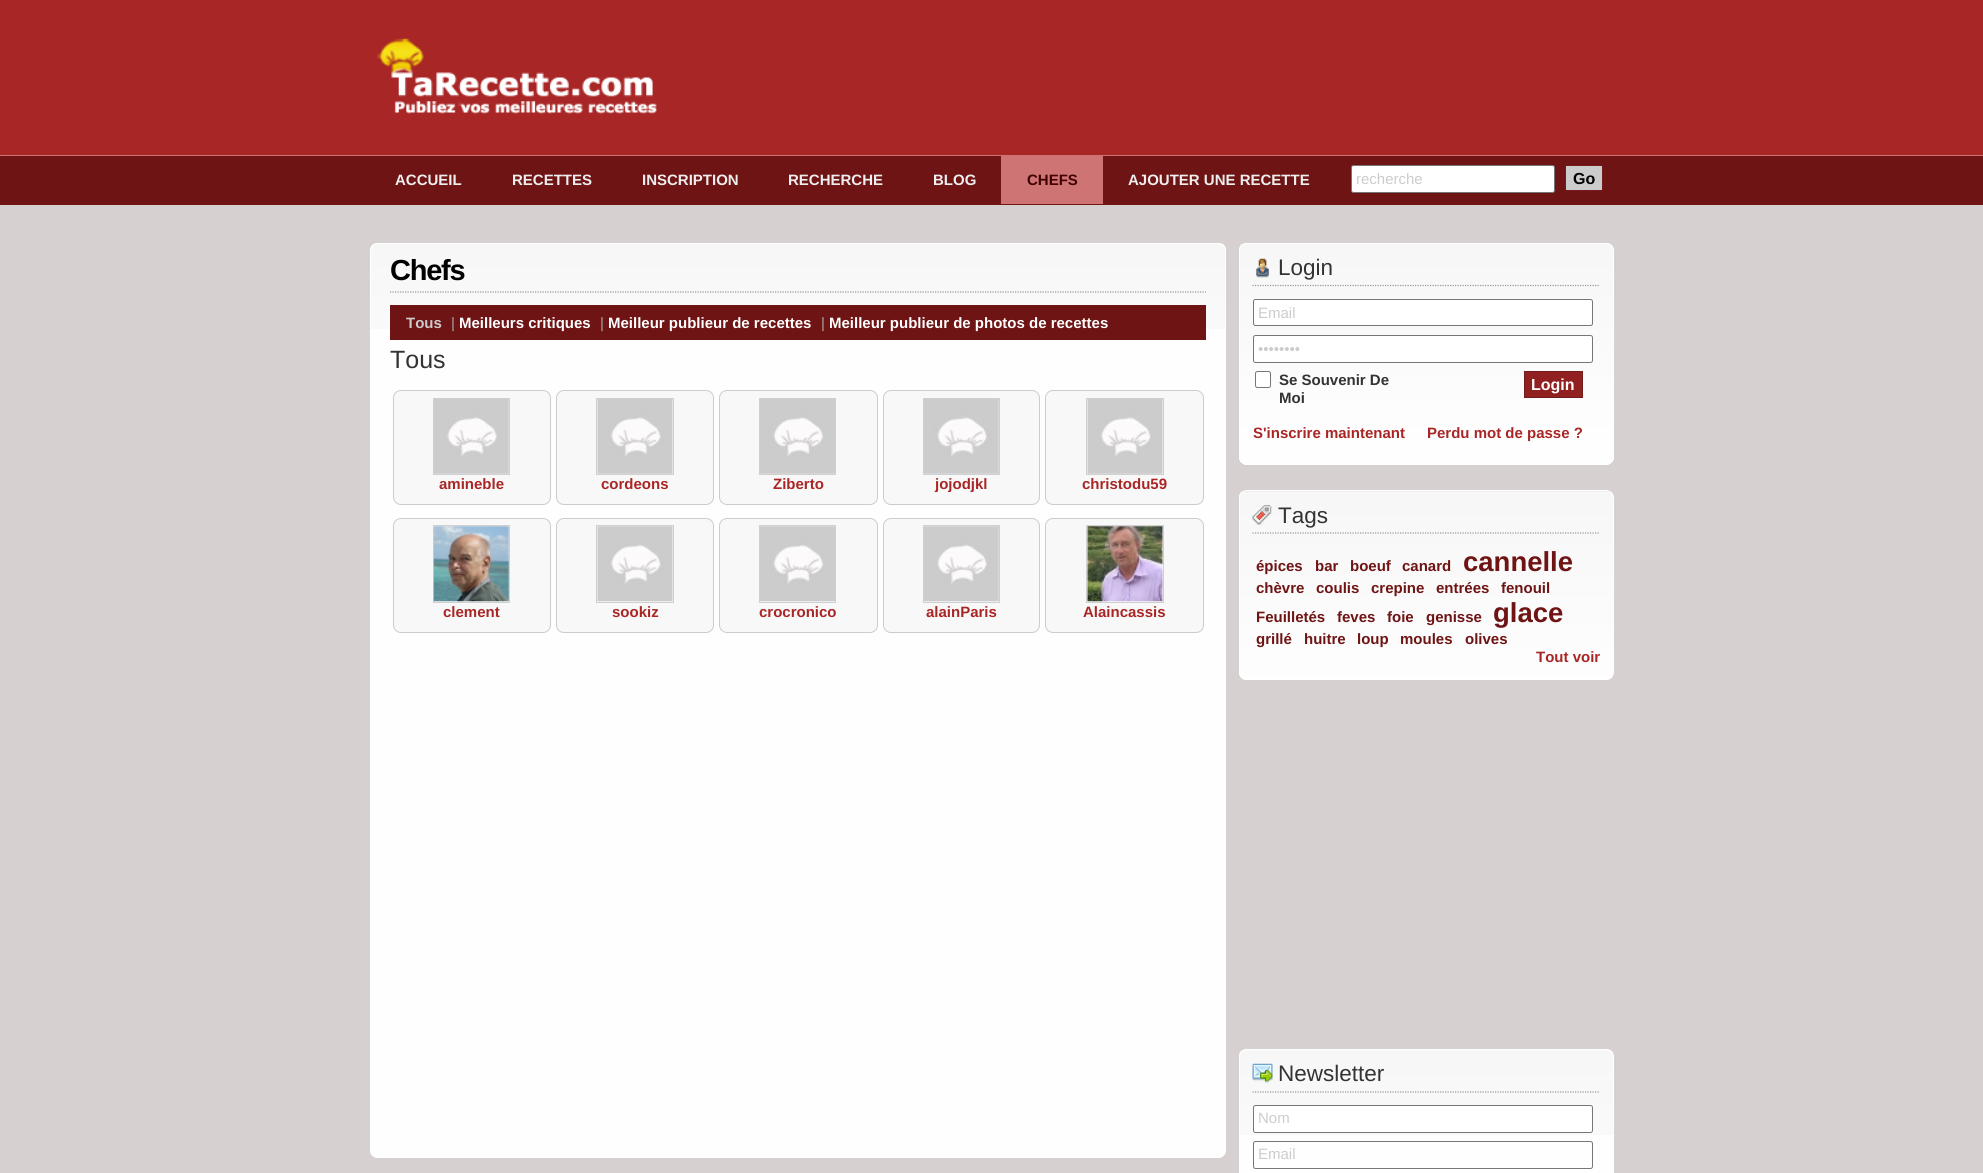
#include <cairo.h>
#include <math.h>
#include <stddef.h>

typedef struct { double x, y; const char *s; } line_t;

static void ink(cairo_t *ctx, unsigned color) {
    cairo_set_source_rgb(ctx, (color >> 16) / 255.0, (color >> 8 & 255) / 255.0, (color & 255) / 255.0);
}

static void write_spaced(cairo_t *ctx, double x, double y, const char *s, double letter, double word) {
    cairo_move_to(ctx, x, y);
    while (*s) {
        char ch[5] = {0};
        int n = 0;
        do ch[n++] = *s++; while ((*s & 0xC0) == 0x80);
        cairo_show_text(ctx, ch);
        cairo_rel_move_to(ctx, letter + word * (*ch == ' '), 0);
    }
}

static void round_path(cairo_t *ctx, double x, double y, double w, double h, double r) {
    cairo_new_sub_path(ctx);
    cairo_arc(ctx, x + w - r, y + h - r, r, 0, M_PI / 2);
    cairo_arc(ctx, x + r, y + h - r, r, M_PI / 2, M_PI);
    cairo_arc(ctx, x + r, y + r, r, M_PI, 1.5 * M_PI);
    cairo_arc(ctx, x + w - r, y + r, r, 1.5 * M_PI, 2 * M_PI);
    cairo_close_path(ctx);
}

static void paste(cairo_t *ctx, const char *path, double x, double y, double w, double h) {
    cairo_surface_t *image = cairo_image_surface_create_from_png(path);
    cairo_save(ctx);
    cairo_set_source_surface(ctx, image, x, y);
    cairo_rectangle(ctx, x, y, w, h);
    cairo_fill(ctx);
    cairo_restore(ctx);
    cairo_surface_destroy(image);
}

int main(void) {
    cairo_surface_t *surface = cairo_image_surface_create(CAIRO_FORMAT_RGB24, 1983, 1173);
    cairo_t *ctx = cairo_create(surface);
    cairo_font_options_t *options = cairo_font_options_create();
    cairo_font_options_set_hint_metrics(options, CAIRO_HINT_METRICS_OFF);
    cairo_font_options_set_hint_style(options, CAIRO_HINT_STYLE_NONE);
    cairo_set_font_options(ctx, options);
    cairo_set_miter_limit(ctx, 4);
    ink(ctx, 0xD6D0D0);
    cairo_paint(ctx);
    ink(ctx, 0xA92626);
    cairo_rectangle(ctx, 0, 0, 1983, 155);
    cairo_fill(ctx);
    paste(ctx, "media/1.png", 377, 38, 280, 76);
    ink(ctx, 0x6F1414);
    cairo_rectangle(ctx, 0, 156, 1983, 49);
    cairo_fill(ctx);
    ink(ctx, 0xCF7474);
    cairo_rectangle(ctx, 0, 155, 1983, 1);
    cairo_fill(ctx);
    cairo_select_font_face(ctx, "Liberation Sans", CAIRO_FONT_SLANT_NORMAL, CAIRO_FONT_WEIGHT_BOLD);
    cairo_set_font_size(ctx, 15);
    ink(ctx, 0xEEEEEE);
    {
        static const line_t items[] = {
            {395, 185, "ACCUEIL"},
            {512, 185, "RECETTES"},
            {642, 185, "INSCRIPTION"},
            {788, 185, "RECHERCHE"},
            {933, 185, "BLOG"},
        };
        for (size_t i = 0; i < sizeof items / sizeof *items; i++) {
            cairo_move_to(ctx, items[i].x, items[i].y);
            cairo_show_text(ctx, items[i].s);
        }
    }
    ink(ctx, 0xCF7474);
    cairo_rectangle(ctx, 1001, 156, 102, 48);
    cairo_fill(ctx);
    ink(ctx, 0x3F0000);
    cairo_move_to(ctx, 1027, 185);
    cairo_show_text(ctx, "CHEFS");
    ink(ctx, 0xEEEEEE);
    cairo_move_to(ctx, 1128, 185);
    cairo_show_text(ctx, "AJOUTER UNE RECETTE");
    ink(ctx, 0xFFFFFF);
    round_path(ctx, 1351.5, 165.5, 203, 27, 2);
    cairo_fill_preserve(ctx);
    ink(ctx, 0x767676);
    cairo_set_line_width(ctx, 1);
    cairo_stroke(ctx);
    cairo_select_font_face(ctx, "Liberation Sans", CAIRO_FONT_SLANT_NORMAL, CAIRO_FONT_WEIGHT_NORMAL);
    ink(ctx, 0xCCCCCC);
    cairo_move_to(ctx, 1356, 184);
    cairo_show_text(ctx, "recherche");
    cairo_rectangle(ctx, 1565.5, 165.5, 37, 25);
    cairo_fill_preserve(ctx);
    ink(ctx, 0x731A1A);
    cairo_stroke(ctx);
    cairo_select_font_face(ctx, "Liberation Sans", CAIRO_FONT_SLANT_NORMAL, CAIRO_FONT_WEIGHT_BOLD);
    cairo_set_font_size(ctx, 16);
    ink(ctx, 0x000000);
    cairo_move_to(ctx, 1573, 184);
    cairo_show_text(ctx, "Go");
    ink(ctx, 0xFEFEFE);
    round_path(ctx, 370, 243, 856, 915, 8);
    cairo_fill(ctx);
    paste(ctx, "media/2.png", 370, 243, 856, 86);
    round_path(ctx, 370.5, 243.5, 855, 914, 7.5);
    ink(ctx, 0xFFFFFF);
    cairo_stroke(ctx);
    cairo_set_font_size(ctx, 29);
    ink(ctx, 0x000000);
    write_spaced(ctx, 390, 280, "Chefs", -1.25, 0);
    cairo_new_path(ctx);
    cairo_move_to(ctx, 390, 292);
    cairo_line_to(ctx, 1206, 292);
    ink(ctx, 0x999999);
    cairo_set_line_width(ctx, 1.2);
    cairo_set_dash(ctx, (double[]){1.25, 1.25}, 2, 0);
    cairo_stroke(ctx);
    ink(ctx, 0x6F1414);
    cairo_rectangle(ctx, 390, 305, 816, 35);
    cairo_fill(ctx);
    cairo_set_font_size(ctx, 15);
    ink(ctx, 0xCCCCCC);
    cairo_move_to(ctx, 406, 328);
    cairo_show_text(ctx, "Tous");
    cairo_select_font_face(ctx, "Liberation Sans", CAIRO_FONT_SLANT_NORMAL, CAIRO_FONT_WEIGHT_NORMAL);
    ink(ctx, 0xA6A6A6);
    cairo_move_to(ctx, 451, 328);
    cairo_show_text(ctx, "|");
    cairo_select_font_face(ctx, "Liberation Sans", CAIRO_FONT_SLANT_NORMAL, CAIRO_FONT_WEIGHT_BOLD);
    ink(ctx, 0xFFFFFF);
    cairo_move_to(ctx, 459, 328);
    cairo_show_text(ctx, "Meilleurs critiques");
    cairo_select_font_face(ctx, "Liberation Sans", CAIRO_FONT_SLANT_NORMAL, CAIRO_FONT_WEIGHT_NORMAL);
    ink(ctx, 0xA6A6A6);
    cairo_move_to(ctx, 600, 328);
    cairo_show_text(ctx, "|");
    cairo_select_font_face(ctx, "Liberation Sans", CAIRO_FONT_SLANT_NORMAL, CAIRO_FONT_WEIGHT_BOLD);
    ink(ctx, 0xFFFFFF);
    cairo_move_to(ctx, 608, 328);
    cairo_show_text(ctx, "Meilleur publieur de recettes");
    cairo_select_font_face(ctx, "Liberation Sans", CAIRO_FONT_SLANT_NORMAL, CAIRO_FONT_WEIGHT_NORMAL);
    ink(ctx, 0xA6A6A6);
    cairo_move_to(ctx, 821, 328);
    cairo_show_text(ctx, "|");
    cairo_select_font_face(ctx, "Liberation Sans", CAIRO_FONT_SLANT_NORMAL, CAIRO_FONT_WEIGHT_BOLD);
    ink(ctx, 0xFFFFFF);
    cairo_move_to(ctx, 829, 328);
    cairo_show_text(ctx, "Meilleur publieur de photos de recettes");
    cairo_select_font_face(ctx, "Liberation Sans", CAIRO_FONT_SLANT_NORMAL, CAIRO_FONT_WEIGHT_NORMAL);
    cairo_set_font_size(ctx, 25);
    ink(ctx, 0x333333);
    cairo_move_to(ctx, 390, 368);
    cairo_show_text(ctx, "Tous");
    ink(ctx, 0xF8F8F8);
    round_path(ctx, 393.5, 390.5, 157, 114, 7.5);
    cairo_fill_preserve(ctx);
    ink(ctx, 0xCCCCCC);
    cairo_set_line_width(ctx, 1);
    cairo_set_dash(ctx, NULL, 0, 0);
    cairo_stroke(ctx);
    cairo_rectangle(ctx, 433.5, 398.5, 76, 76);
    ink(ctx, 0xCFCFCF);
    cairo_stroke(ctx);
    paste(ctx, "media/3.png", 434, 399, 75, 75);
    cairo_select_font_face(ctx, "Liberation Sans", CAIRO_FONT_SLANT_NORMAL, CAIRO_FONT_WEIGHT_BOLD);
    cairo_set_font_size(ctx, 15);
    ink(ctx, 0xA92626);
    cairo_move_to(ctx, 439, 489);
    cairo_show_text(ctx, "amineble");
    ink(ctx, 0xF8F8F8);
    round_path(ctx, 556.5, 390.5, 157, 114, 7.5);
    cairo_fill_preserve(ctx);
    ink(ctx, 0xCCCCCC);
    cairo_stroke(ctx);
    cairo_rectangle(ctx, 596.5, 398.5, 77, 76);
    ink(ctx, 0xCFCFCF);
    cairo_stroke(ctx);
    paste(ctx, "media/4.png", 597, 399, 76, 75);
    ink(ctx, 0xA92626);
    cairo_move_to(ctx, 601, 489);
    cairo_show_text(ctx, "cordeons");
    ink(ctx, 0xF8F8F8);
    round_path(ctx, 719.5, 390.5, 158, 114, 7.5);
    cairo_fill_preserve(ctx);
    ink(ctx, 0xCCCCCC);
    cairo_stroke(ctx);
    cairo_rectangle(ctx, 759.5, 398.5, 76, 76);
    ink(ctx, 0xCFCFCF);
    cairo_stroke(ctx);
    paste(ctx, "media/5.png", 760, 399, 75, 75);
    ink(ctx, 0xA92626);
    cairo_move_to(ctx, 773, 489);
    cairo_show_text(ctx, "Ziberto");
    ink(ctx, 0xF8F8F8);
    round_path(ctx, 883.5, 390.5, 156, 114, 7.5);
    cairo_fill_preserve(ctx);
    ink(ctx, 0xCCCCCC);
    cairo_stroke(ctx);
    cairo_rectangle(ctx, 923.5, 398.5, 76, 76);
    ink(ctx, 0xCFCFCF);
    cairo_stroke(ctx);
    paste(ctx, "media/6.png", 924, 399, 75, 75);
    ink(ctx, 0xA92626);
    cairo_move_to(ctx, 935, 489);
    cairo_show_text(ctx, "jojodjkl");
    ink(ctx, 0xF8F8F8);
    round_path(ctx, 1045.5, 390.5, 158, 114, 7.5);
    cairo_fill_preserve(ctx);
    ink(ctx, 0xCCCCCC);
    cairo_stroke(ctx);
    cairo_rectangle(ctx, 1086.5, 398.5, 77, 76);
    ink(ctx, 0xCFCFCF);
    cairo_stroke(ctx);
    paste(ctx, "media/7.png", 1087, 399, 76, 75);
    ink(ctx, 0xA92626);
    cairo_move_to(ctx, 1082, 489);
    cairo_show_text(ctx, "christodu59");
    ink(ctx, 0xF8F8F8);
    round_path(ctx, 393.5, 518.5, 157, 114, 7.5);
    cairo_fill_preserve(ctx);
    ink(ctx, 0xCCCCCC);
    cairo_stroke(ctx);
    cairo_rectangle(ctx, 433.5, 525.5, 76, 77);
    ink(ctx, 0xCFCFCF);
    cairo_stroke(ctx);
    paste(ctx, "media/8.png", 433, 526, 76, 76);
    ink(ctx, 0xA92626);
    cairo_move_to(ctx, 443, 617);
    cairo_show_text(ctx, "clement");
    ink(ctx, 0xF8F8F8);
    round_path(ctx, 556.5, 518.5, 157, 114, 7.5);
    cairo_fill_preserve(ctx);
    ink(ctx, 0xCCCCCC);
    cairo_stroke(ctx);
    cairo_rectangle(ctx, 596.5, 525.5, 77, 77);
    ink(ctx, 0xCFCFCF);
    cairo_stroke(ctx);
    paste(ctx, "media/9.png", 597, 526, 76, 76);
    ink(ctx, 0xA92626);
    cairo_move_to(ctx, 612, 617);
    cairo_show_text(ctx, "sookiz");
    ink(ctx, 0xF8F8F8);
    round_path(ctx, 719.5, 518.5, 158, 114, 7.5);
    cairo_fill_preserve(ctx);
    ink(ctx, 0xCCCCCC);
    cairo_stroke(ctx);
    cairo_rectangle(ctx, 759.5, 525.5, 76, 77);
    ink(ctx, 0xCFCFCF);
    cairo_stroke(ctx);
    paste(ctx, "media/10.png", 760, 526, 75, 76);
    ink(ctx, 0xA92626);
    cairo_move_to(ctx, 759, 617);
    cairo_show_text(ctx, "crocronico");
    ink(ctx, 0xF8F8F8);
    round_path(ctx, 883.5, 518.5, 156, 114, 7.5);
    cairo_fill_preserve(ctx);
    ink(ctx, 0xCCCCCC);
    cairo_stroke(ctx);
    cairo_rectangle(ctx, 923.5, 525.5, 76, 77);
    ink(ctx, 0xCFCFCF);
    cairo_stroke(ctx);
    paste(ctx, "media/11.png", 924, 526, 75, 76);
    ink(ctx, 0xA92626);
    cairo_move_to(ctx, 926, 617);
    cairo_show_text(ctx, "alainParis");
    ink(ctx, 0xF8F8F8);
    round_path(ctx, 1045.5, 518.5, 158, 114, 7.5);
    cairo_fill_preserve(ctx);
    ink(ctx, 0xCCCCCC);
    cairo_stroke(ctx);
    cairo_rectangle(ctx, 1086.5, 525.5, 77, 77);
    ink(ctx, 0xCFCFCF);
    cairo_stroke(ctx);
    paste(ctx, "media/12.png", 1087, 526, 76, 76);
    ink(ctx, 0xA92626);
    cairo_move_to(ctx, 1083, 617);
    cairo_show_text(ctx, "Alaincassis");
    ink(ctx, 0xFEFEFE);
    round_path(ctx, 1239, 243, 375, 222, 8);
    cairo_fill(ctx);
    paste(ctx, "media/13.png", 1239, 243, 375, 217);
    round_path(ctx, 1239.5, 243.5, 374, 221, 7.5);
    ink(ctx, 0xFFFFFF);
    cairo_stroke(ctx);
    paste(ctx, "media/14.png", 1256, 258, 13, 20);
    cairo_select_font_face(ctx, "Liberation Sans", CAIRO_FONT_SLANT_NORMAL, CAIRO_FONT_WEIGHT_NORMAL);
    cairo_set_font_size(ctx, 22.5);
    ink(ctx, 0x333333);
    cairo_move_to(ctx, 1278, 275);
    cairo_show_text(ctx, "Login");
    cairo_new_path(ctx);
    cairo_move_to(ctx, 1252.5, 285.5);
    cairo_line_to(ctx, 1600, 285.5);
    ink(ctx, 0x999999);
    cairo_set_line_width(ctx, 1.2);
    cairo_set_dash(ctx, (double[]){1.25, 1.25}, 2, 0);
    cairo_stroke(ctx);
    ink(ctx, 0xFFFFFF);
    round_path(ctx, 1253.5, 299.5, 339, 26, 2);
    cairo_fill_preserve(ctx);
    ink(ctx, 0x767676);
    cairo_set_line_width(ctx, 1);
    cairo_set_dash(ctx, NULL, 0, 0);
    cairo_stroke(ctx);
    cairo_set_font_size(ctx, 15);
    ink(ctx, 0xCCCCCC);
    cairo_move_to(ctx, 1258, 318);
    cairo_show_text(ctx, "Email");
    ink(ctx, 0xFFFFFF);
    round_path(ctx, 1253.5, 335.5, 339, 27, 2);
    cairo_fill_preserve(ctx);
    ink(ctx, 0x767676);
    cairo_stroke(ctx);
    ink(ctx, 0xCCCCCC);
    cairo_move_to(ctx, 1258, 354);
    cairo_show_text(ctx, "••••••••");
    ink(ctx, 0xFFFFFF);
    round_path(ctx, 1255.5, 371.5, 15, 16, 2);
    cairo_fill_preserve(ctx);
    ink(ctx, 0x767676);
    cairo_stroke(ctx);
    cairo_select_font_face(ctx, "Liberation Sans", CAIRO_FONT_SLANT_NORMAL, CAIRO_FONT_WEIGHT_BOLD);
    ink(ctx, 0x333333);
    cairo_move_to(ctx, 1279, 385);
    cairo_show_text(ctx, "Se Souvenir De");
    cairo_move_to(ctx, 1279, 403);
    cairo_show_text(ctx, "Moi");
    ink(ctx, 0x912020);
    cairo_rectangle(ctx, 1524.5, 371.5, 58, 26);
    cairo_fill_preserve(ctx);
    ink(ctx, 0x731A1A);
    cairo_stroke(ctx);
    cairo_set_font_size(ctx, 16);
    ink(ctx, 0xFFFFFF);
    cairo_move_to(ctx, 1531, 390);
    cairo_show_text(ctx, "Login");
    cairo_set_font_size(ctx, 15);
    ink(ctx, 0xA92626);
    cairo_move_to(ctx, 1253, 438);
    cairo_show_text(ctx, "S'inscrire maintenant");
    cairo_move_to(ctx, 1427, 438);
    cairo_show_text(ctx, "Perdu mot de passe ?");
    paste(ctx, "media/15.png", 1239, 491, 375, 189);
    round_path(ctx, 1239.5, 490.5, 374, 189, 7.5);
    ink(ctx, 0xFFFFFF);
    cairo_stroke(ctx);
    paste(ctx, "media/16.png", 1252, 505, 20, 20);
    cairo_select_font_face(ctx, "Liberation Sans", CAIRO_FONT_SLANT_NORMAL, CAIRO_FONT_WEIGHT_NORMAL);
    cairo_set_font_size(ctx, 22.5);
    ink(ctx, 0x333333);
    cairo_move_to(ctx, 1278, 523);
    cairo_show_text(ctx, "Tags");
    cairo_new_path(ctx);
    cairo_move_to(ctx, 1252.5, 533);
    cairo_line_to(ctx, 1600, 533);
    ink(ctx, 0x999999);
    cairo_set_line_width(ctx, 1.2);
    cairo_set_dash(ctx, (double[]){1.25, 1.25}, 2, 0);
    cairo_stroke(ctx);
    cairo_select_font_face(ctx, "Liberation Sans", CAIRO_FONT_SLANT_NORMAL, CAIRO_FONT_WEIGHT_BOLD);
    cairo_set_font_size(ctx, 15);
    ink(ctx, 0x6F1414);
    {
        static const line_t items[] = {
            {1256, 571, "épices"},
            {1315, 571, "bar"},
            {1350, 571, "boeuf"},
            {1402, 571, "canard"},
        };
        for (size_t i = 0; i < sizeof items / sizeof *items; i++) {
            cairo_move_to(ctx, items[i].x, items[i].y);
            cairo_show_text(ctx, items[i].s);
        }
    }
    cairo_set_font_size(ctx, 27.5);
    cairo_move_to(ctx, 1463, 571);
    cairo_show_text(ctx, "cannelle");
    cairo_set_font_size(ctx, 15);
    {
        static const line_t items[] = {
            {1256, 593, "chèvre"},
            {1316, 593, "coulis"},
            {1371, 593, "crepine"},
            {1436, 593, "entrées"},
            {1501, 593, "fenouil"},
            {1256, 622, "Feuilletés"},
            {1337, 622, "feves"},
            {1387, 622, "foie"},
            {1426, 622, "genisse"},
        };
        for (size_t i = 0; i < sizeof items / sizeof *items; i++) {
            cairo_move_to(ctx, items[i].x, items[i].y);
            cairo_show_text(ctx, items[i].s);
        }
    }
    cairo_set_font_size(ctx, 27.5);
    cairo_move_to(ctx, 1493, 622);
    cairo_show_text(ctx, "glace");
    cairo_set_font_size(ctx, 15);
    {
        static const line_t items[] = {
            {1256, 644, "grillé"},
            {1304, 644, "huitre"},
            {1357, 644, "loup"},
            {1400, 644, "moules"},
            {1465, 644, "olives"},
        };
        for (size_t i = 0; i < sizeof items / sizeof *items; i++) {
            cairo_move_to(ctx, items[i].x, items[i].y);
            cairo_show_text(ctx, items[i].s);
        }
    }
    ink(ctx, 0xA92626);
    cairo_move_to(ctx, 1536, 662);
    cairo_show_text(ctx, "Tout voir");
    ink(ctx, 0xFEFEFE);
    round_path(ctx, 1239, 1049, 375, 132, 8);
    cairo_fill(ctx);
    paste(ctx, "media/17.png", 1239, 1050, 375, 85);
    round_path(ctx, 1239.5, 1049.5, 374, 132, 7.5);
    ink(ctx, 0xFFFFFF);
    cairo_set_line_width(ctx, 1);
    cairo_set_dash(ctx, NULL, 0, 0);
    cairo_stroke(ctx);
    paste(ctx, "media/18.png", 1252, 1063, 21, 20);
    cairo_select_font_face(ctx, "Liberation Sans", CAIRO_FONT_SLANT_NORMAL, CAIRO_FONT_WEIGHT_NORMAL);
    cairo_set_font_size(ctx, 22.5);
    ink(ctx, 0x333333);
    cairo_move_to(ctx, 1278, 1081);
    cairo_show_text(ctx, "Newsletter");
    cairo_new_path(ctx);
    cairo_move_to(ctx, 1252.5, 1092);
    cairo_line_to(ctx, 1600, 1092);
    ink(ctx, 0x999999);
    cairo_set_line_width(ctx, 1.2);
    cairo_set_dash(ctx, (double[]){1.25, 1.25}, 2, 0);
    cairo_stroke(ctx);
    ink(ctx, 0xFFFFFF);
    round_path(ctx, 1253.5, 1105.5, 339, 27, 2);
    cairo_fill_preserve(ctx);
    ink(ctx, 0x767676);
    cairo_set_line_width(ctx, 1);
    cairo_set_dash(ctx, NULL, 0, 0);
    cairo_stroke(ctx);
    cairo_set_font_size(ctx, 15);
    ink(ctx, 0xCCCCCC);
    cairo_move_to(ctx, 1258, 1123);
    cairo_show_text(ctx, "Nom");
    round_path(ctx, 1253.5, 1141.5, 339, 27, 2);
    ink(ctx, 0x767676);
    cairo_stroke(ctx);
    ink(ctx, 0xCCCCCC);
    cairo_move_to(ctx, 1258, 1159);
    cairo_show_text(ctx, "Email");
    cairo_surface_write_to_png(surface, "image.png");
    cairo_font_options_destroy(options);
    cairo_destroy(ctx);
    cairo_surface_destroy(surface);
    return 0;
}
